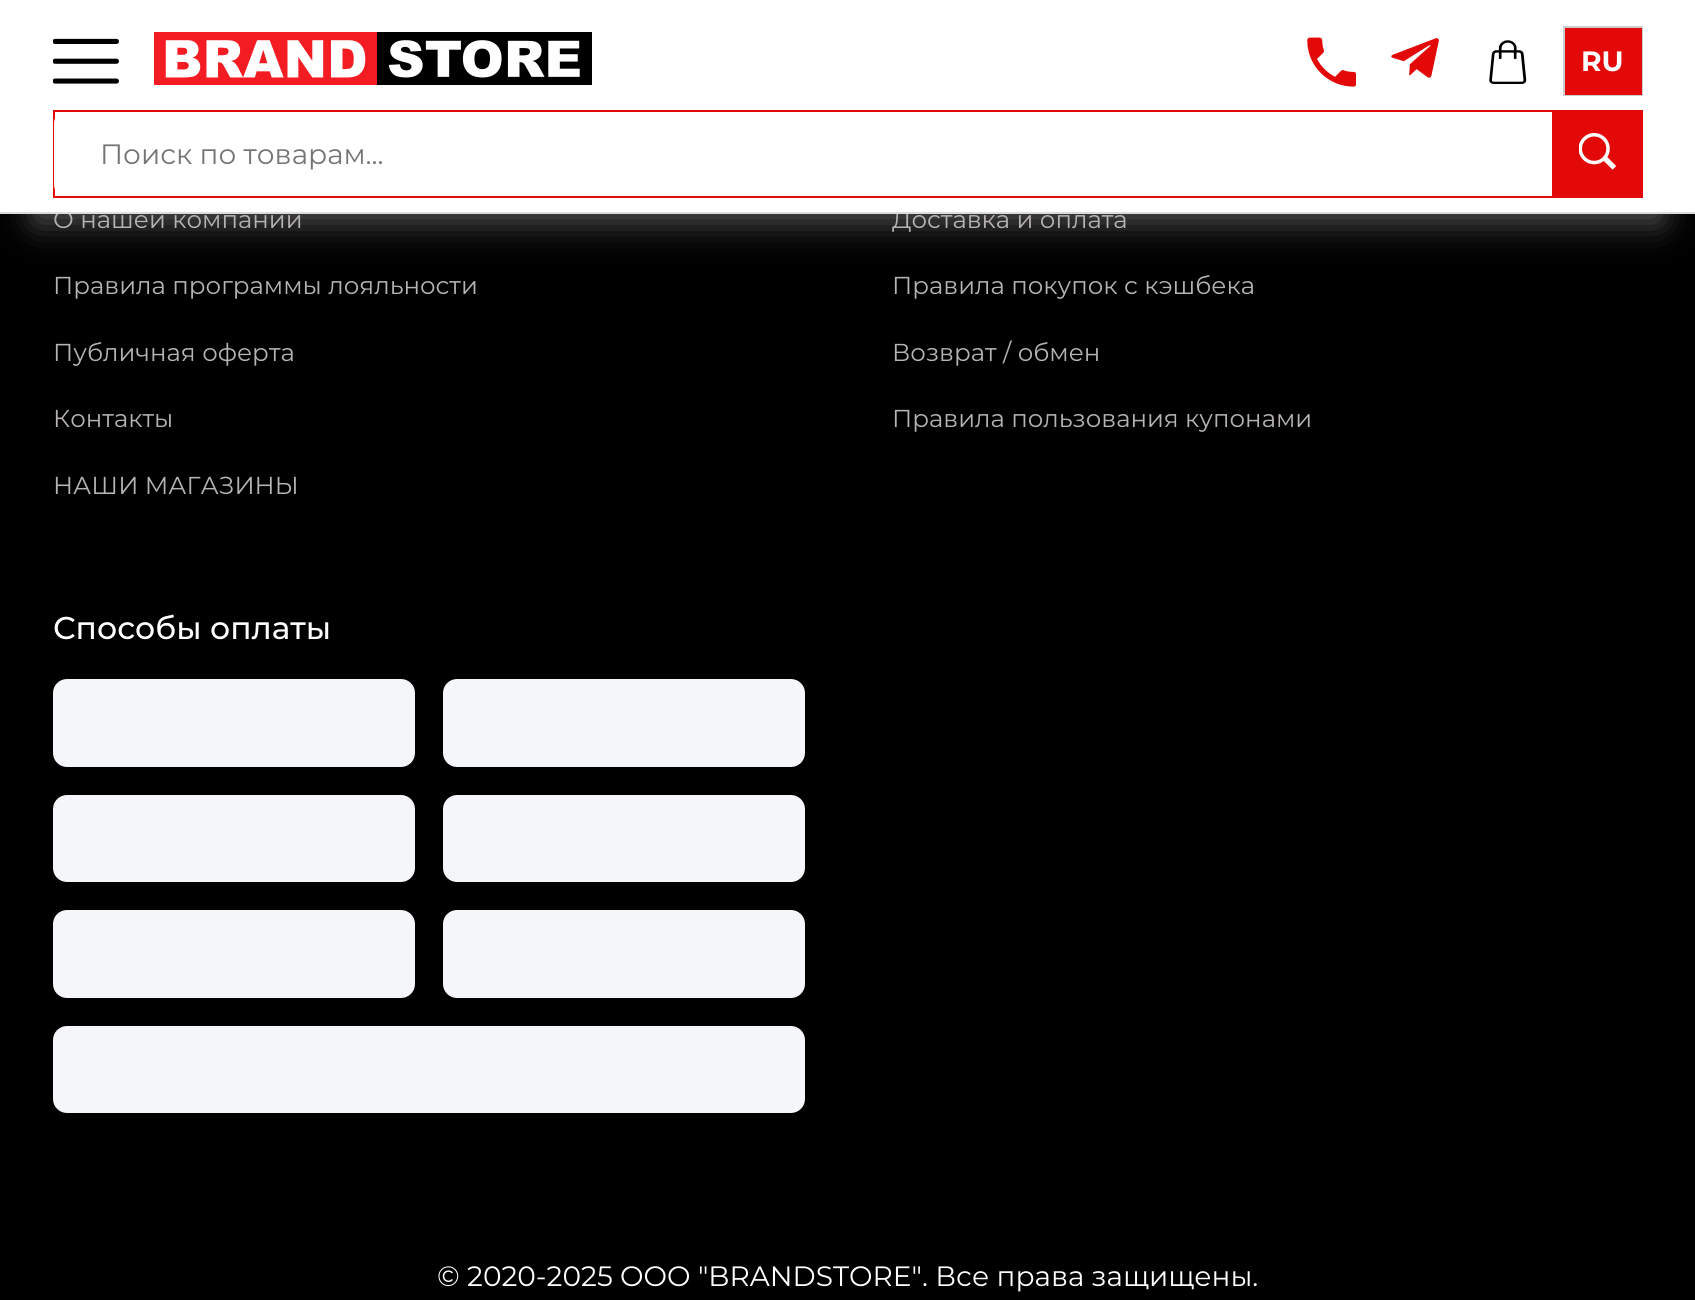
#include <cairo.h>
#include <math.h>
#include <stddef.h>

typedef struct { double x, y; const char *s; } line_t;

static void ink(cairo_t *ctx, unsigned color) {
    cairo_set_source_rgb(ctx, (color >> 16) / 255.0, (color >> 8 & 255) / 255.0, (color & 255) / 255.0);
}

static void round_path(cairo_t *ctx, double x, double y, double w, double h, double r) {
    cairo_new_sub_path(ctx);
    cairo_arc(ctx, x + w - r, y + h - r, r, 0, M_PI / 2);
    cairo_arc(ctx, x + r, y + h - r, r, M_PI / 2, M_PI);
    cairo_arc(ctx, x + r, y + r, r, M_PI, 1.5 * M_PI);
    cairo_arc(ctx, x + w - r, y + r, r, 1.5 * M_PI, 2 * M_PI);
    cairo_close_path(ctx);
}

static void blur_box(cairo_t *ctx, double x, double y, double w, double h, double r, double blur, double alpha) {
    cairo_push_group_with_content(ctx, CAIRO_CONTENT_ALPHA);
    cairo_set_operator(ctx, CAIRO_OPERATOR_SOURCE);
    for (int i = 15; i >= -15 && fmin(w, h) + blur * i / 3 > 0; i -= 2) {
        double e = blur * i / 6;
        cairo_set_source_rgba(ctx, 0, 0, 0, alpha * erfc((i - 1) / 8.5) / 2);
        round_path(ctx, x - e, y - e, w + 2 * e, h + 2 * e, fmax(0, fmin(r + e + blur * .6, fmin(w, h) / 2 + e)));
        cairo_fill(ctx);
    }
    cairo_pattern_t *soft = cairo_pop_group(ctx);
    cairo_mask(ctx, soft);
    cairo_pattern_destroy(soft);
}

static void paste(cairo_t *ctx, const char *path, double x, double y, double w, double h) {
    cairo_surface_t *image = cairo_image_surface_create_from_png(path);
    cairo_save(ctx);
    cairo_set_source_surface(ctx, image, x, y);
    cairo_rectangle(ctx, x, y, w, h);
    cairo_fill(ctx);
    cairo_restore(ctx);
    cairo_surface_destroy(image);
}

int main(void) {
    cairo_surface_t *surface = cairo_image_surface_create(CAIRO_FORMAT_RGB24, 1695, 1300);
    cairo_t *ctx = cairo_create(surface);
    cairo_font_options_t *options = cairo_font_options_create();
    cairo_font_options_set_hint_metrics(options, CAIRO_HINT_METRICS_OFF);
    cairo_font_options_set_hint_style(options, CAIRO_HINT_STYLE_NONE);
    cairo_set_font_options(ctx, options);
    cairo_set_miter_limit(ctx, 4);
    ink(ctx, 0x000000);
    cairo_paint(ctx);
    ink(ctx, 0xC4C4C4);
    blur_box(ctx, 35, 79, 1626, 143, 0, 17.5, 0.45);
    cairo_select_font_face(ctx, "Montserrat", CAIRO_FONT_SLANT_NORMAL, CAIRO_FONT_WEIGHT_NORMAL);
    cairo_set_font_size(ctx, 24.5);
    ink(ctx, 0xB7B3B3);
    cairo_move_to(ctx, 53, 228);
    cairo_show_text(ctx, "О нашей компании");
    cairo_move_to(ctx, 892, 228);
    cairo_show_text(ctx, "Доставка и оплата");
    ink(ctx, 0xFFFFFF);
    cairo_rectangle(ctx, 0, 0, 1695, 212);
    cairo_fill(ctx);
    ink(ctx, 0xDCDCDC);
    cairo_rectangle(ctx, 0, 212, 1695, 2);
    cairo_fill(ctx);
    paste(ctx, "media/1.png", 53, 38, 66, 46);
    paste(ctx, "media/2.png", 154, 32, 438, 53);
    paste(ctx, "media/3.png", 1307, 37, 49, 50);
    paste(ctx, "media/4.png", 1391, 38, 48, 40);
    paste(ctx, "media/5.png", 1489, 40, 38, 44);
    cairo_rectangle(ctx, 1564, 27, 78, 68);
    ink(ctx, 0xCCCCCC);
    cairo_stroke(ctx);
    ink(ctx, 0xE30909);
    cairo_rectangle(ctx, 1565, 28, 77, 67);
    cairo_fill(ctx);
    cairo_select_font_face(ctx, "Montserrat", CAIRO_FONT_SLANT_NORMAL, CAIRO_FONT_WEIGHT_BOLD);
    cairo_set_font_size(ctx, 28);
    ink(ctx, 0xFFFFFF);
    cairo_move_to(ctx, 1581, 71);
    cairo_show_text(ctx, "RU");
    cairo_rectangle(ctx, 54, 111, 1588, 86);
    ink(ctx, 0xE30909);
    cairo_stroke(ctx);
    ink(ctx, 0xFFFFFF);
    round_path(ctx, 54, 112, 1483, 84, 11);
    cairo_fill(ctx);
    cairo_select_font_face(ctx, "Montserrat", CAIRO_FONT_SLANT_NORMAL, CAIRO_FONT_WEIGHT_NORMAL);
    ink(ctx, 0x757575);
    cairo_move_to(ctx, 100, 164);
    cairo_show_text(ctx, "Поиск по товарам...");
    ink(ctx, 0xE30909);
    cairo_rectangle(ctx, 1552, 112, 89, 84);
    cairo_fill(ctx);
    paste(ctx, "media/6.png", 1579, 133, 38, 37);
    cairo_set_font_size(ctx, 24.5);
    ink(ctx, 0xB7B3B3);
    {
        static const line_t items[] = {
            {53, 294, "Правила программы лояльности"},
            {53, 361, "Публичная оферта"},
            {53, 427, "Контакты"},
            {53, 494, "НАШИ МАГАЗИНЫ"},
            {892, 294, "Правила покупок с кэшбека"},
            {892, 361, "Возврат / обмен"},
            {892, 427, "Правила пользования купонами"},
        };
        for (size_t i = 0; i < sizeof items / sizeof *items; i++) {
            cairo_move_to(ctx, items[i].x, items[i].y);
            cairo_show_text(ctx, items[i].s);
        }
    }
    cairo_select_font_face(ctx, "Montserrat Medium", CAIRO_FONT_SLANT_NORMAL, CAIRO_FONT_WEIGHT_NORMAL);
    cairo_set_font_size(ctx, 31.5);
    ink(ctx, 0xFFFFFF);
    cairo_move_to(ctx, 53, 639);
    cairo_show_text(ctx, "Способы оплаты");
    ink(ctx, 0xF5F6FA);
    round_path(ctx, 53, 679, 362, 88, 14);
    cairo_fill(ctx);
    round_path(ctx, 443, 679, 362, 88, 14);
    cairo_fill(ctx);
    round_path(ctx, 53, 795, 362, 87, 14);
    cairo_fill(ctx);
    round_path(ctx, 443, 795, 362, 87, 14);
    cairo_fill(ctx);
    round_path(ctx, 53, 910, 362, 88, 14);
    cairo_fill(ctx);
    round_path(ctx, 443, 910, 362, 88, 14);
    cairo_fill(ctx);
    round_path(ctx, 53, 1026, 752, 87, 14);
    cairo_fill(ctx);
    cairo_select_font_face(ctx, "Montserrat", CAIRO_FONT_SLANT_NORMAL, CAIRO_FONT_WEIGHT_NORMAL);
    cairo_set_font_size(ctx, 28);
    ink(ctx, 0xFFFFFF);
    cairo_move_to(ctx, 437, 1286);
    cairo_show_text(ctx, "© 2020-2025 OOO \"BRANDSTORE\". Все права защищены.");
    cairo_surface_write_to_png(surface, "image.png");
    cairo_font_options_destroy(options);
    cairo_destroy(ctx);
    cairo_surface_destroy(surface);
    return 0;
}
